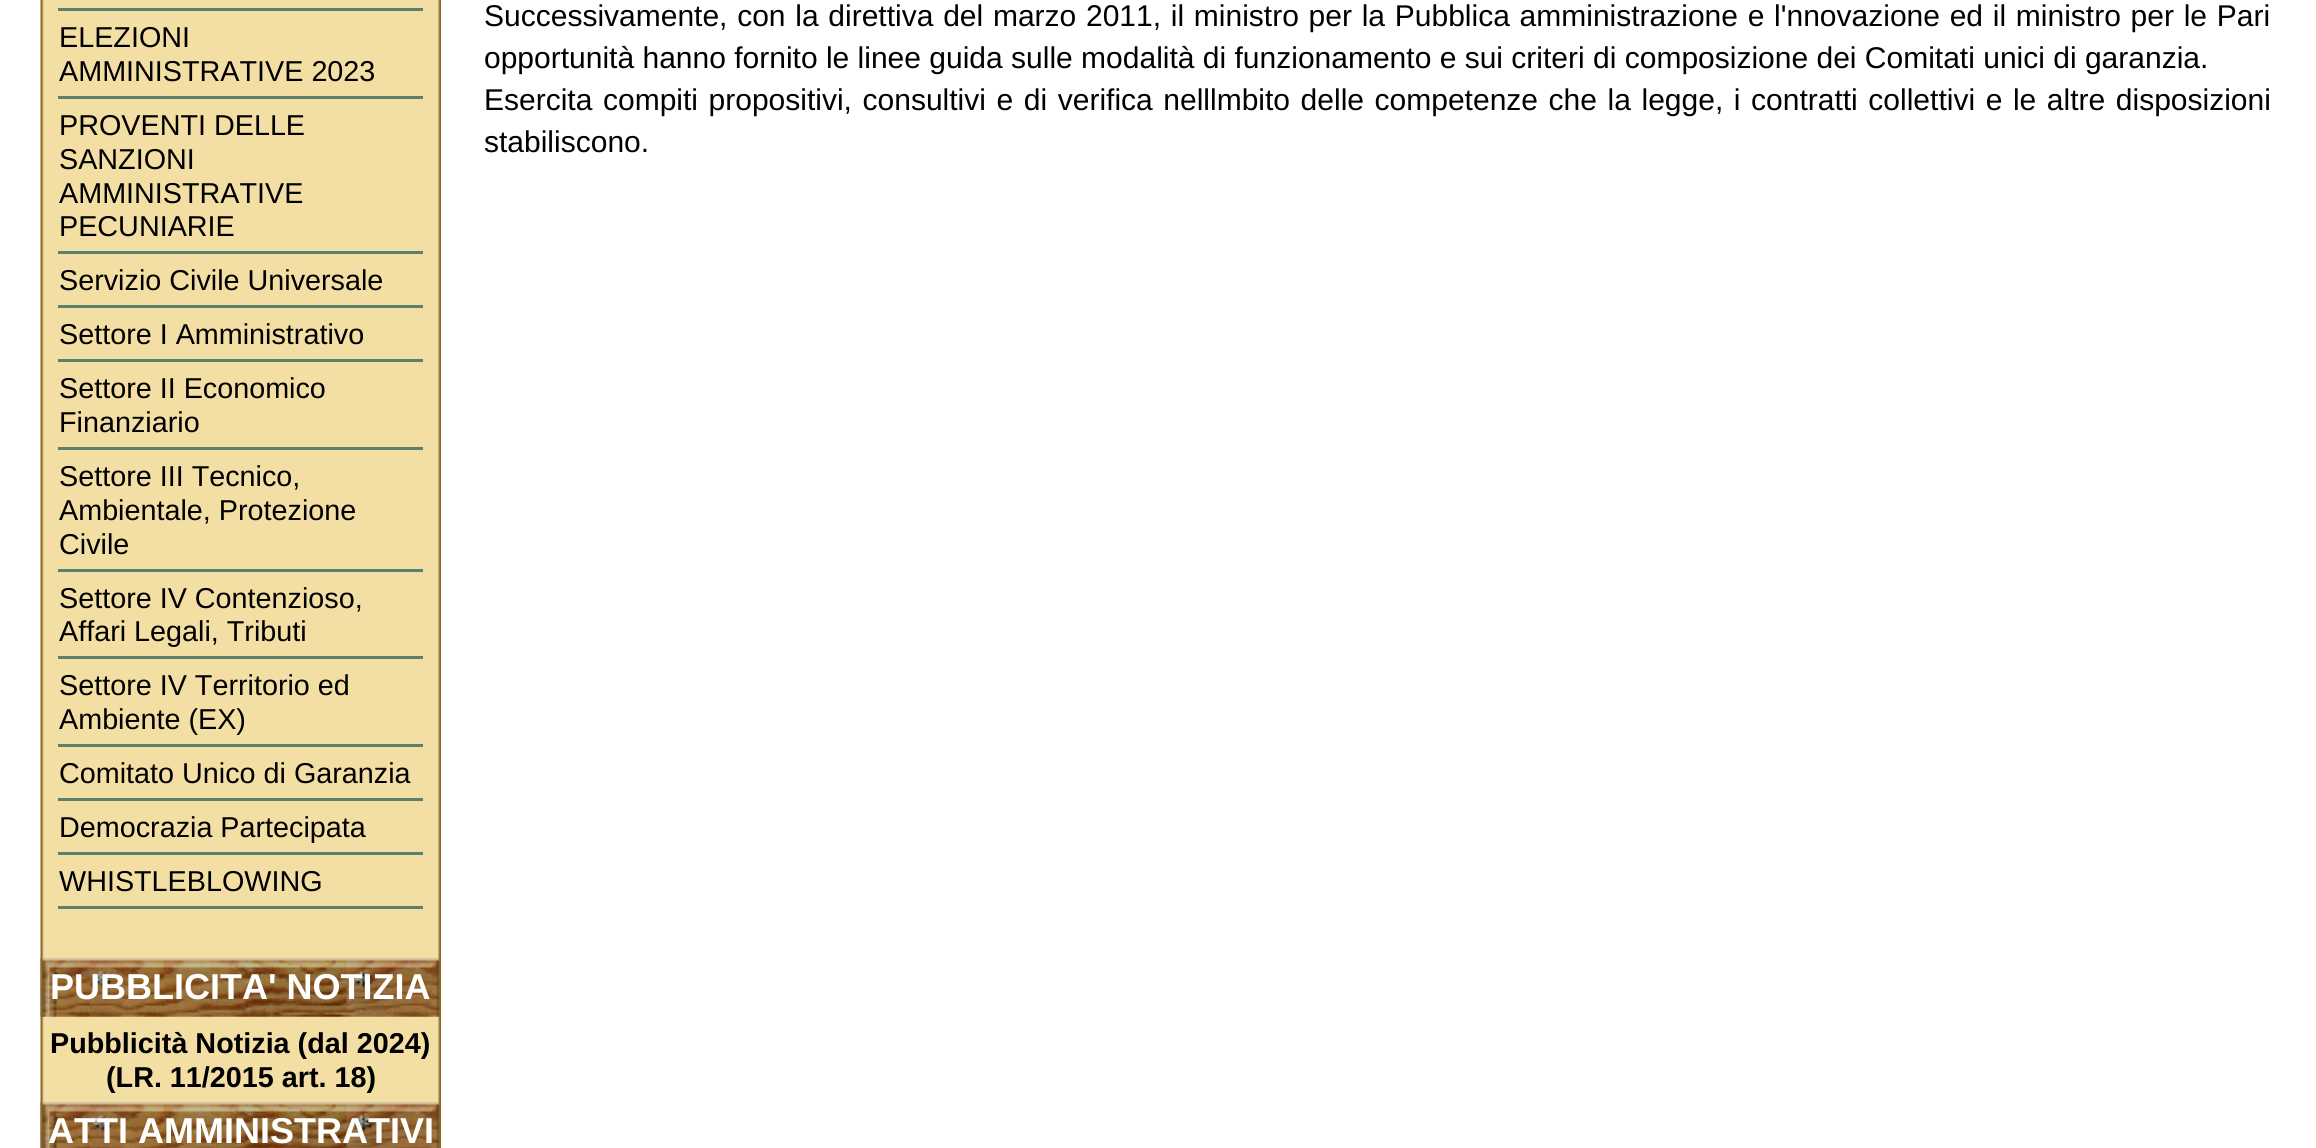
#include <cairo.h>
#include <math.h>
#include <stddef.h>

typedef struct { double x, y; const char *s; } line_t;

static void ink(cairo_t *ctx, unsigned color) {
    cairo_set_source_rgb(ctx, (color >> 16) / 255.0, (color >> 8 & 255) / 255.0, (color & 255) / 255.0);
}

static void write_spaced(cairo_t *ctx, double x, double y, const char *s, double letter, double word) {
    cairo_move_to(ctx, x, y);
    while (*s) {
        char ch[5] = {0};
        int n = 0;
        do ch[n++] = *s++; while ((*s & 0xC0) == 0x80);
        cairo_show_text(ctx, ch);
        cairo_rel_move_to(ctx, letter + word * (*ch == ' '), 0);
    }
}

static void paste(cairo_t *ctx, const char *path, double x, double y, double w, double h) {
    cairo_surface_t *image = cairo_image_surface_create_from_png(path);
    cairo_save(ctx);
    cairo_set_source_surface(ctx, image, x, y);
    cairo_rectangle(ctx, x, y, w, h);
    cairo_fill(ctx);
    cairo_restore(ctx);
    cairo_surface_destroy(image);
}

int main(void) {
    cairo_surface_t *surface = cairo_image_surface_create(CAIRO_FORMAT_RGB24, 2316, 1148);
    cairo_t *ctx = cairo_create(surface);
    cairo_font_options_t *options = cairo_font_options_create();
    cairo_font_options_set_hint_metrics(options, CAIRO_HINT_METRICS_OFF);
    cairo_font_options_set_hint_style(options, CAIRO_HINT_STYLE_NONE);
    cairo_set_font_options(ctx, options);
    cairo_set_miter_limit(ctx, 4);
    ink(ctx, 0xFFFFFF);
    cairo_paint(ctx);
    paste(ctx, "media/1.png", 40, 0, 401, 1148);
    ink(ctx, 0x5D7F6D);
    cairo_rectangle(ctx, 58, 8, 365, 3);
    cairo_fill(ctx);
    cairo_select_font_face(ctx, "Liberation Sans", CAIRO_FONT_SLANT_NORMAL, CAIRO_FONT_WEIGHT_NORMAL);
    cairo_set_font_size(ctx, 28.75);
    ink(ctx, 0x000000);
    cairo_move_to(ctx, 59, 47);
    cairo_show_text(ctx, "ELEZIONI");
    cairo_move_to(ctx, 59, 81);
    cairo_show_text(ctx, "AMMINISTRATIVE 2023");
    ink(ctx, 0x5D7F6D);
    cairo_rectangle(ctx, 58, 96, 365, 3);
    cairo_fill(ctx);
    ink(ctx, 0x000000);
    {
        static const line_t items[] = {
            {59, 135, "PROVENTI DELLE"},
            {59, 169, "SANZIONI"},
            {59, 203, "AMMINISTRATIVE"},
            {59, 236, "PECUNIARIE"},
        };
        for (size_t i = 0; i < sizeof items / sizeof *items; i++) {
            cairo_move_to(ctx, items[i].x, items[i].y);
            cairo_show_text(ctx, items[i].s);
        }
    }
    ink(ctx, 0x5D7F6D);
    cairo_rectangle(ctx, 58, 251, 365, 3);
    cairo_fill(ctx);
    ink(ctx, 0x000000);
    cairo_move_to(ctx, 59, 290);
    cairo_show_text(ctx, "Servizio Civile Universale");
    ink(ctx, 0x5D7F6D);
    cairo_rectangle(ctx, 58, 305, 365, 3);
    cairo_fill(ctx);
    ink(ctx, 0x000000);
    cairo_move_to(ctx, 59, 344);
    cairo_show_text(ctx, "Settore I Amministrativo");
    ink(ctx, 0x5D7F6D);
    cairo_rectangle(ctx, 58, 359, 365, 3);
    cairo_fill(ctx);
    ink(ctx, 0x000000);
    cairo_move_to(ctx, 59, 398);
    cairo_show_text(ctx, "Settore II Economico");
    cairo_move_to(ctx, 59, 432);
    cairo_show_text(ctx, "Finanziario");
    ink(ctx, 0x5D7F6D);
    cairo_rectangle(ctx, 58, 447, 365, 3);
    cairo_fill(ctx);
    ink(ctx, 0x000000);
    {
        static const line_t items[] = {
            {59, 486, "Settore III Tecnico,"},
            {59, 520, "Ambientale, Protezione"},
            {59, 554, "Civile"},
        };
        for (size_t i = 0; i < sizeof items / sizeof *items; i++) {
            cairo_move_to(ctx, items[i].x, items[i].y);
            cairo_show_text(ctx, items[i].s);
        }
    }
    ink(ctx, 0x5D7F6D);
    cairo_rectangle(ctx, 58, 569, 365, 3);
    cairo_fill(ctx);
    ink(ctx, 0x000000);
    cairo_move_to(ctx, 59, 608);
    cairo_show_text(ctx, "Settore IV Contenzioso,");
    cairo_move_to(ctx, 59, 641);
    cairo_show_text(ctx, "Affari Legali, Tributi");
    ink(ctx, 0x5D7F6D);
    cairo_rectangle(ctx, 58, 656, 365, 3);
    cairo_fill(ctx);
    ink(ctx, 0x000000);
    cairo_move_to(ctx, 59, 695);
    cairo_show_text(ctx, "Settore IV Territorio ed");
    cairo_move_to(ctx, 59, 729);
    cairo_show_text(ctx, "Ambiente (EX)");
    ink(ctx, 0x5D7F6D);
    cairo_rectangle(ctx, 58, 744, 365, 3);
    cairo_fill(ctx);
    ink(ctx, 0x000000);
    cairo_move_to(ctx, 59, 783);
    cairo_show_text(ctx, "Comitato Unico di Garanzia");
    ink(ctx, 0x5D7F6D);
    cairo_rectangle(ctx, 58, 798, 365, 3);
    cairo_fill(ctx);
    ink(ctx, 0x000000);
    cairo_move_to(ctx, 59, 837);
    cairo_show_text(ctx, "Democrazia Partecipata");
    ink(ctx, 0x5D7F6D);
    cairo_rectangle(ctx, 58, 852, 365, 3);
    cairo_fill(ctx);
    ink(ctx, 0x000000);
    cairo_move_to(ctx, 59, 891);
    cairo_show_text(ctx, "WHISTLEBLOWING");
    ink(ctx, 0x5D7F6D);
    cairo_rectangle(ctx, 58, 906, 365, 3);
    cairo_fill(ctx);
    paste(ctx, "media/2.png", 40, 958, 400, 59);
    cairo_select_font_face(ctx, "Liberation Sans", CAIRO_FONT_SLANT_NORMAL, CAIRO_FONT_WEIGHT_BOLD);
    cairo_set_font_size(ctx, 36);
    ink(ctx, 0xFFFFFF);
    cairo_move_to(ctx, 50, 999);
    cairo_show_text(ctx, "PUBBLICITA' NOTIZIA");
    cairo_set_font_size(ctx, 28.75);
    ink(ctx, 0x000000);
    cairo_move_to(ctx, 50, 1053);
    cairo_show_text(ctx, "Pubblicità Notizia (dal 2024)");
    cairo_move_to(ctx, 106, 1087);
    cairo_show_text(ctx, "(LR. 11/2015 art. 18)");
    paste(ctx, "media/3.png", 40, 1102, 400, 46);
    cairo_set_font_size(ctx, 36);
    ink(ctx, 0xFFFFFF);
    cairo_move_to(ctx, 48, 1143);
    cairo_show_text(ctx, "ATTI AMMINISTRATIVI");
    cairo_select_font_face(ctx, "Liberation Sans", CAIRO_FONT_SLANT_NORMAL, CAIRO_FONT_WEIGHT_NORMAL);
    cairo_set_font_size(ctx, 30);
    ink(ctx, 0x000000);
    write_spaced(ctx, 484, 26, "Successivamente, con la direttiva del marzo 2011, il ministro per la Pubblica amministrazione e l'nnovazione ed il ministro per le Pari", 0, 1.4);
    cairo_move_to(ctx, 484, 68);
    cairo_show_text(ctx, "opportunità hanno fornito le linee guida sulle modalità di funzionamento e sui criteri di composizione dei Comitati unici di garanzia.");
    write_spaced(ctx, 484, 110, "Esercita compiti propositivi, consultivi e di verifica nelllmbito delle competenze che la legge, i contratti collettivi e le altre disposizioni", 0, 2.25);
    cairo_move_to(ctx, 484, 152);
    cairo_show_text(ctx, "stabiliscono.");
    cairo_surface_write_to_png(surface, "image.png");
    cairo_font_options_destroy(options);
    cairo_destroy(ctx);
    cairo_surface_destroy(surface);
    return 0;
}
